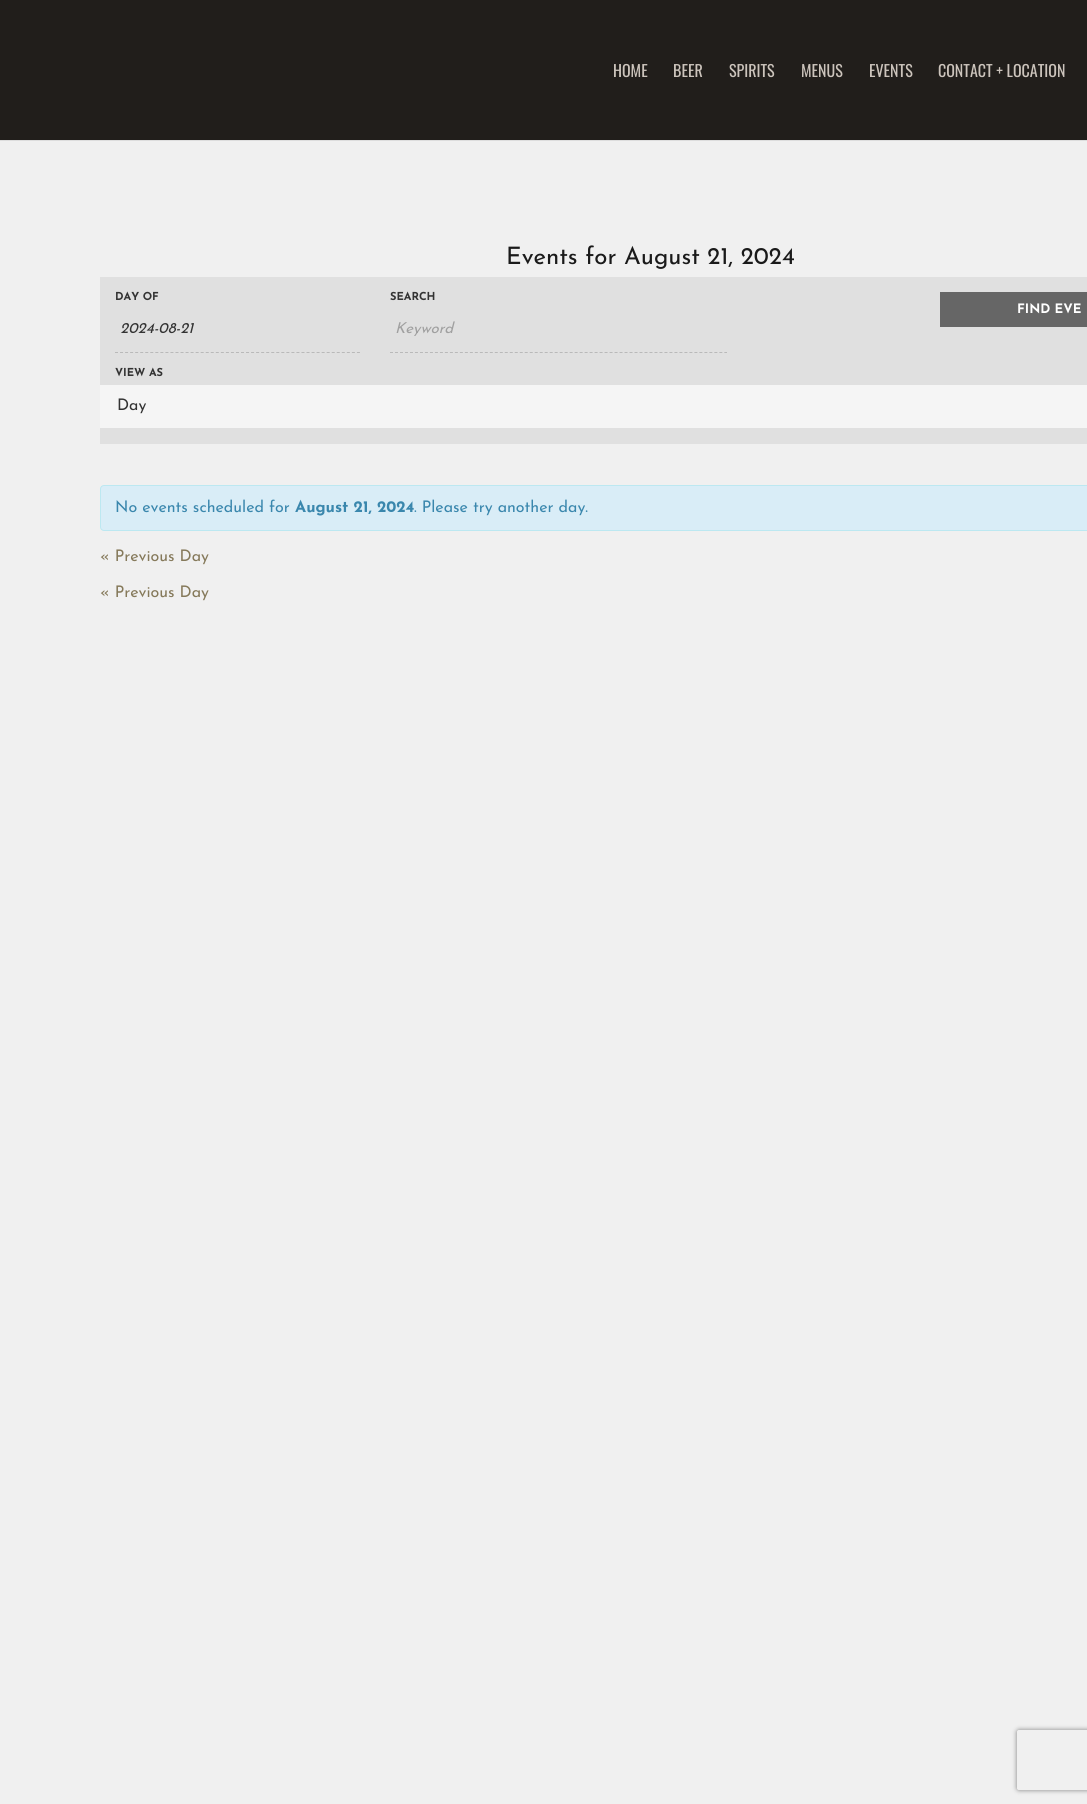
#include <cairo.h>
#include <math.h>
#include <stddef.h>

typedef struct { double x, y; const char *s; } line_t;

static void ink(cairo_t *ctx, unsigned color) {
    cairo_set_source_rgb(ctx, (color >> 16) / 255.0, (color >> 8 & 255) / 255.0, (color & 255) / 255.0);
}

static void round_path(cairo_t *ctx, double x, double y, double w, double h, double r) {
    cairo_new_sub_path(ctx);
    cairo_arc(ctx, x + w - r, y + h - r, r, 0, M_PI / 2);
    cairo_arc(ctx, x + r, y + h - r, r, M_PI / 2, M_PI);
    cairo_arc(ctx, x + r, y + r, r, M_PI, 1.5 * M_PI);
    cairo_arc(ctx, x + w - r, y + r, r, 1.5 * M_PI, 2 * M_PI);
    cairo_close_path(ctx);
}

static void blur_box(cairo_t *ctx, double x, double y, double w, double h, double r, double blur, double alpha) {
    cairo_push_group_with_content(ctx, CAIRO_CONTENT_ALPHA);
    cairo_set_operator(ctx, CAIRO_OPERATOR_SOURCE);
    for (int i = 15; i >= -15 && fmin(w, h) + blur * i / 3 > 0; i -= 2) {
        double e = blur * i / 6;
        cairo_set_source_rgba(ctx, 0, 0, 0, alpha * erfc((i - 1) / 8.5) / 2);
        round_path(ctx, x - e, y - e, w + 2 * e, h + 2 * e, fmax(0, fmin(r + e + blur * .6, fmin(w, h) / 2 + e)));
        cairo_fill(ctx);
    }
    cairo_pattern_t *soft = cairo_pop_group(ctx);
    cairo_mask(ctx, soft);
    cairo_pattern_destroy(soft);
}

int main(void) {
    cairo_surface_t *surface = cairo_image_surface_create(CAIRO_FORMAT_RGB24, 1087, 1804);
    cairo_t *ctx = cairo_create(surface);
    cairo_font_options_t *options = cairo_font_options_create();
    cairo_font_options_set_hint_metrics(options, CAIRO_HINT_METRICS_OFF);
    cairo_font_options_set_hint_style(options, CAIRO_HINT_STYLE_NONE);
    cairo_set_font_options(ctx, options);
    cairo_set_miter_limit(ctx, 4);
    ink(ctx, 0xF0F0F0);
    cairo_paint(ctx);
    ink(ctx, 0xDDDDDD);
    cairo_rectangle(ctx, 0, 140, 1087, 1);
    cairo_fill(ctx);
    ink(ctx, 0x211E1B);
    cairo_rectangle(ctx, 0, 0, 1087, 140);
    cairo_fill(ctx);
    cairo_select_font_face(ctx, "Oswald", CAIRO_FONT_SLANT_NORMAL, CAIRO_FONT_WEIGHT_NORMAL);
    cairo_set_font_size(ctx, 16);
    ink(ctx, 0xCCC4BC);
    {
        static const line_t items[] = {
            {613, 77, "HOME"},
            {673, 77, "BEER"},
            {729, 77, "SPIRITS"},
            {801, 77, "MENUS"},
            {869, 77, "EVENTS"},
            {938, 77, "CONTACT + LOCATION"},
        };
        for (size_t i = 0; i < sizeof items / sizeof *items; i++) {
            cairo_move_to(ctx, items[i].x, items[i].y);
            cairo_show_text(ctx, items[i].s);
        }
    }
    cairo_select_font_face(ctx, "Josefin Sans", CAIRO_FONT_SLANT_NORMAL, CAIRO_FONT_WEIGHT_NORMAL);
    cairo_set_font_size(ctx, 24);
    ink(ctx, 0x1A1A1A);
    cairo_move_to(ctx, 506, 264);
    cairo_show_text(ctx, "Events for August 21, 2024");
    ink(ctx, 0xE0E0E0);
    cairo_rectangle(ctx, 100, 277, 987, 167);
    cairo_fill(ctx);
    cairo_select_font_face(ctx, "Josefin Sans", CAIRO_FONT_SLANT_NORMAL, CAIRO_FONT_WEIGHT_BOLD);
    cairo_set_font_size(ctx, 11);
    ink(ctx, 0x333333);
    cairo_move_to(ctx, 115, 300);
    cairo_show_text(ctx, "DAY OF");
    cairo_new_path(ctx);
    cairo_move_to(ctx, 115, 352.5);
    cairo_line_to(ctx, 360, 352.5);
    ink(ctx, 0xB9B9B9);
    cairo_set_line_width(ctx, 1);
    cairo_set_dash(ctx, (double[]){3, 2.04}, 2, 0);
    cairo_stroke(ctx);
    cairo_select_font_face(ctx, "Josefin Sans", CAIRO_FONT_SLANT_ITALIC, CAIRO_FONT_WEIGHT_NORMAL);
    cairo_set_font_size(ctx, 15);
    ink(ctx, 0x333333);
    cairo_move_to(ctx, 120, 333);
    cairo_show_text(ctx, "2024-08-21");
    cairo_select_font_face(ctx, "Josefin Sans", CAIRO_FONT_SLANT_NORMAL, CAIRO_FONT_WEIGHT_BOLD);
    cairo_set_font_size(ctx, 11);
    cairo_move_to(ctx, 390, 300);
    cairo_show_text(ctx, "SEARCH");
    cairo_new_path(ctx);
    cairo_move_to(ctx, 390, 352.5);
    cairo_line_to(ctx, 727, 352.5);
    ink(ctx, 0xB9B9B9);
    cairo_set_dash(ctx, (double[]){3, 1.99}, 2, 0);
    cairo_stroke(ctx);
    cairo_select_font_face(ctx, "Josefin Sans", CAIRO_FONT_SLANT_ITALIC, CAIRO_FONT_WEIGHT_NORMAL);
    cairo_set_font_size(ctx, 15);
    ink(ctx, 0xA0A0A0);
    cairo_move_to(ctx, 395, 333);
    cairo_show_text(ctx, "Keyword");
    ink(ctx, 0x666666);
    cairo_rectangle(ctx, 940, 292, 147, 35);
    cairo_fill(ctx);
    cairo_select_font_face(ctx, "Josefin Sans", CAIRO_FONT_SLANT_NORMAL, CAIRO_FONT_WEIGHT_BOLD);
    cairo_set_font_size(ctx, 13);
    ink(ctx, 0xFFFFFF);
    cairo_move_to(ctx, 1017, 313);
    cairo_show_text(ctx, "FIND EVE");
    cairo_set_font_size(ctx, 11);
    ink(ctx, 0x333333);
    cairo_move_to(ctx, 115, 376);
    cairo_show_text(ctx, "VIEW AS");
    ink(ctx, 0xF5F5F5);
    cairo_rectangle(ctx, 100, 385, 987, 43);
    cairo_fill(ctx);
    cairo_select_font_face(ctx, "Josefin Sans", CAIRO_FONT_SLANT_NORMAL, CAIRO_FONT_WEIGHT_NORMAL);
    cairo_set_font_size(ctx, 16);
    ink(ctx, 0x333333);
    cairo_move_to(ctx, 117, 410);
    cairo_show_text(ctx, "Day");
    ink(ctx, 0xD9EDF7);
    round_path(ctx, 100.5, 485.5, 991, 45, 3.5);
    cairo_fill_preserve(ctx);
    ink(ctx, 0xBCE8F1);
    cairo_set_dash(ctx, NULL, 0, 0);
    cairo_stroke(ctx);
    ink(ctx, 0x3A87AD);
    cairo_move_to(ctx, 115, 512);
    cairo_show_text(ctx, "No events scheduled for");
    cairo_select_font_face(ctx, "Josefin Sans", CAIRO_FONT_SLANT_NORMAL, CAIRO_FONT_WEIGHT_BOLD);
    cairo_move_to(ctx, 295, 512);
    cairo_show_text(ctx, "August 21, 2024");
    cairo_select_font_face(ctx, "Josefin Sans", CAIRO_FONT_SLANT_NORMAL, CAIRO_FONT_WEIGHT_NORMAL);
    cairo_move_to(ctx, 414, 512);
    cairo_show_text(ctx, ". Please try another day.");
    ink(ctx, 0x85795A);
    cairo_move_to(ctx, 100, 561);
    cairo_show_text(ctx, "« Previous Day");
    cairo_move_to(ctx, 100, 597);
    cairo_show_text(ctx, "« Previous Day");
    cairo_save(ctx);
    cairo_set_fill_rule(ctx, CAIRO_FILL_RULE_EVEN_ODD);
    cairo_new_path(ctx);
    cairo_move_to(ctx, 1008, 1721);
    cairo_line_to(ctx, 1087, 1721);
    cairo_line_to(ctx, 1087, 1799);
    cairo_line_to(ctx, 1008, 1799);
    cairo_close_path(ctx);
    cairo_move_to(ctx, 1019, 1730);
    cairo_line_to(ctx, 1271, 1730);
    cairo_curve_to(ctx, 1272, 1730, 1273, 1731, 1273, 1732);
    cairo_line_to(ctx, 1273, 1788);
    cairo_curve_to(ctx, 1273, 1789, 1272, 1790, 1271, 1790);
    cairo_line_to(ctx, 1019, 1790);
    cairo_curve_to(ctx, 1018, 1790, 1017, 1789, 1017, 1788);
    cairo_line_to(ctx, 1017, 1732);
    cairo_curve_to(ctx, 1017, 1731, 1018, 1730, 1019, 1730);
    cairo_close_path(ctx);
    cairo_clip(ctx);
    ink(ctx, 0x808080);
    blur_box(ctx, 1017, 1730, 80, 60, 2, 2.5, 1);
    cairo_restore(ctx);
    cairo_surface_write_to_png(surface, "image.png");
    cairo_font_options_destroy(options);
    cairo_destroy(ctx);
    cairo_surface_destroy(surface);
    return 0;
}
